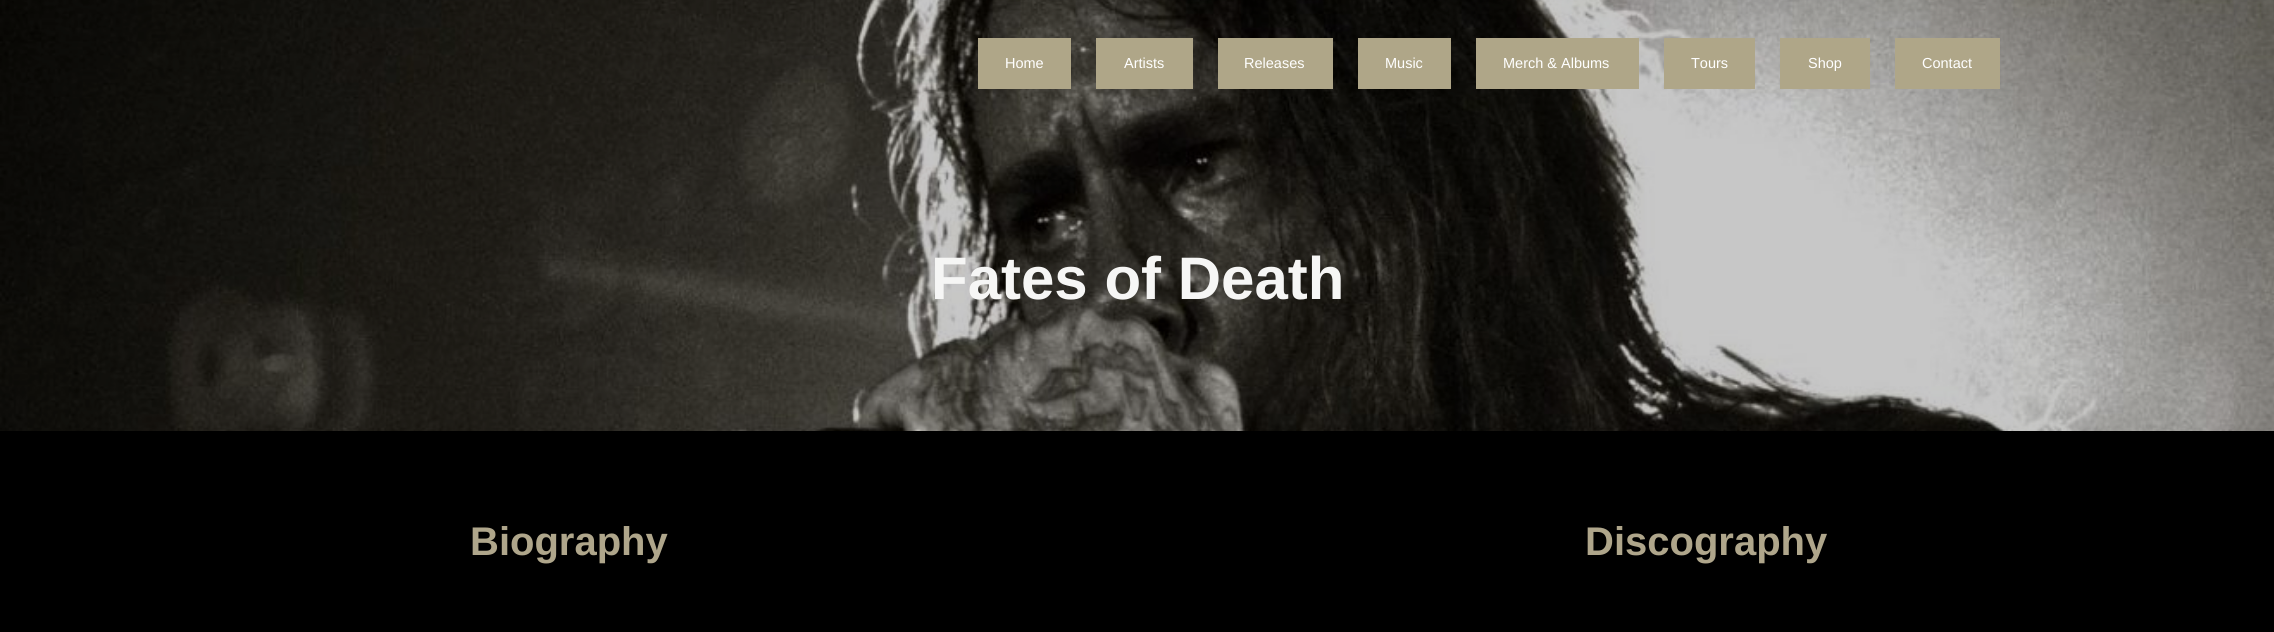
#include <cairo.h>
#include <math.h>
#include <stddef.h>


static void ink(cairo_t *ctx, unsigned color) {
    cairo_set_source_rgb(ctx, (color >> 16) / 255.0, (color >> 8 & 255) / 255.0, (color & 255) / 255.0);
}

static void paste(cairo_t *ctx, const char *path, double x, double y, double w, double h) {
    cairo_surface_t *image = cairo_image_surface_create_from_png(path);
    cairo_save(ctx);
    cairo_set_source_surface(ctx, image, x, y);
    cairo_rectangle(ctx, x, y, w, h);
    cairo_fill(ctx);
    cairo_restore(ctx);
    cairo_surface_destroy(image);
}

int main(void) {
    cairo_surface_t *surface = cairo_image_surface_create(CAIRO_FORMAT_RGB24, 2274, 632);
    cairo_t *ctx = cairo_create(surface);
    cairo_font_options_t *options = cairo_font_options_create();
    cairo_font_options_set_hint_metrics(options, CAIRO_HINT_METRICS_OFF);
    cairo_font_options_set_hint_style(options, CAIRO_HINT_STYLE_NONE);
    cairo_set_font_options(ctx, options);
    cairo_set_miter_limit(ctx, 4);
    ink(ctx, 0xFFFFFF);
    cairo_paint(ctx);
    paste(ctx, "media/1.png", 0, 0, 2274, 431);
    ink(ctx, 0xAFA688);
    cairo_rectangle(ctx, 978, 38, 93, 51);
    cairo_fill(ctx);
    cairo_select_font_face(ctx, "Liberation Sans", CAIRO_FONT_SLANT_NORMAL, CAIRO_FONT_WEIGHT_NORMAL);
    cairo_set_font_size(ctx, 14.5);
    ink(ctx, 0xFFFFFF);
    cairo_move_to(ctx, 1005, 68);
    cairo_show_text(ctx, "Home");
    ink(ctx, 0xAFA688);
    cairo_rectangle(ctx, 1096, 38, 97, 51);
    cairo_fill(ctx);
    ink(ctx, 0xFFFFFF);
    cairo_move_to(ctx, 1124, 68);
    cairo_show_text(ctx, "Artists");
    ink(ctx, 0xAFA688);
    cairo_rectangle(ctx, 1218, 38, 115, 51);
    cairo_fill(ctx);
    ink(ctx, 0xFFFFFF);
    cairo_move_to(ctx, 1244, 68);
    cairo_show_text(ctx, "Releases");
    ink(ctx, 0xAFA688);
    cairo_rectangle(ctx, 1358, 38, 93, 51);
    cairo_fill(ctx);
    ink(ctx, 0xFFFFFF);
    cairo_move_to(ctx, 1385, 68);
    cairo_show_text(ctx, "Music");
    ink(ctx, 0xAFA688);
    cairo_rectangle(ctx, 1476, 38, 163, 51);
    cairo_fill(ctx);
    ink(ctx, 0xFFFFFF);
    cairo_move_to(ctx, 1503, 68);
    cairo_show_text(ctx, "Merch & Albums");
    ink(ctx, 0xAFA688);
    cairo_rectangle(ctx, 1664, 38, 91, 51);
    cairo_fill(ctx);
    ink(ctx, 0xFFFFFF);
    cairo_move_to(ctx, 1691, 68);
    cairo_show_text(ctx, "Tours");
    ink(ctx, 0xAFA688);
    cairo_rectangle(ctx, 1780, 38, 90, 51);
    cairo_fill(ctx);
    ink(ctx, 0xFFFFFF);
    cairo_move_to(ctx, 1808, 68);
    cairo_show_text(ctx, "Shop");
    ink(ctx, 0xAFA688);
    cairo_rectangle(ctx, 1895, 38, 105, 51);
    cairo_fill(ctx);
    ink(ctx, 0xFFFFFF);
    cairo_move_to(ctx, 1922, 68);
    cairo_show_text(ctx, "Contact");
    cairo_select_font_face(ctx, "Liberation Sans", CAIRO_FONT_SLANT_NORMAL, CAIRO_FONT_WEIGHT_BOLD);
    cairo_set_font_size(ctx, 60);
    ink(ctx, 0xF6F6F5);
    cairo_move_to(ctx, 931, 299);
    cairo_show_text(ctx, "Fates of Death");
    ink(ctx, 0x000000);
    cairo_rectangle(ctx, 0, 431, 2274, 201);
    cairo_fill(ctx);
    cairo_set_font_size(ctx, 40);
    ink(ctx, 0xAFA68B);
    cairo_move_to(ctx, 470, 555);
    cairo_show_text(ctx, "Biography");
    cairo_move_to(ctx, 1585, 555);
    cairo_show_text(ctx, "Discography");
    cairo_surface_write_to_png(surface, "image.png");
    cairo_font_options_destroy(options);
    cairo_destroy(ctx);
    cairo_surface_destroy(surface);
    return 0;
}
